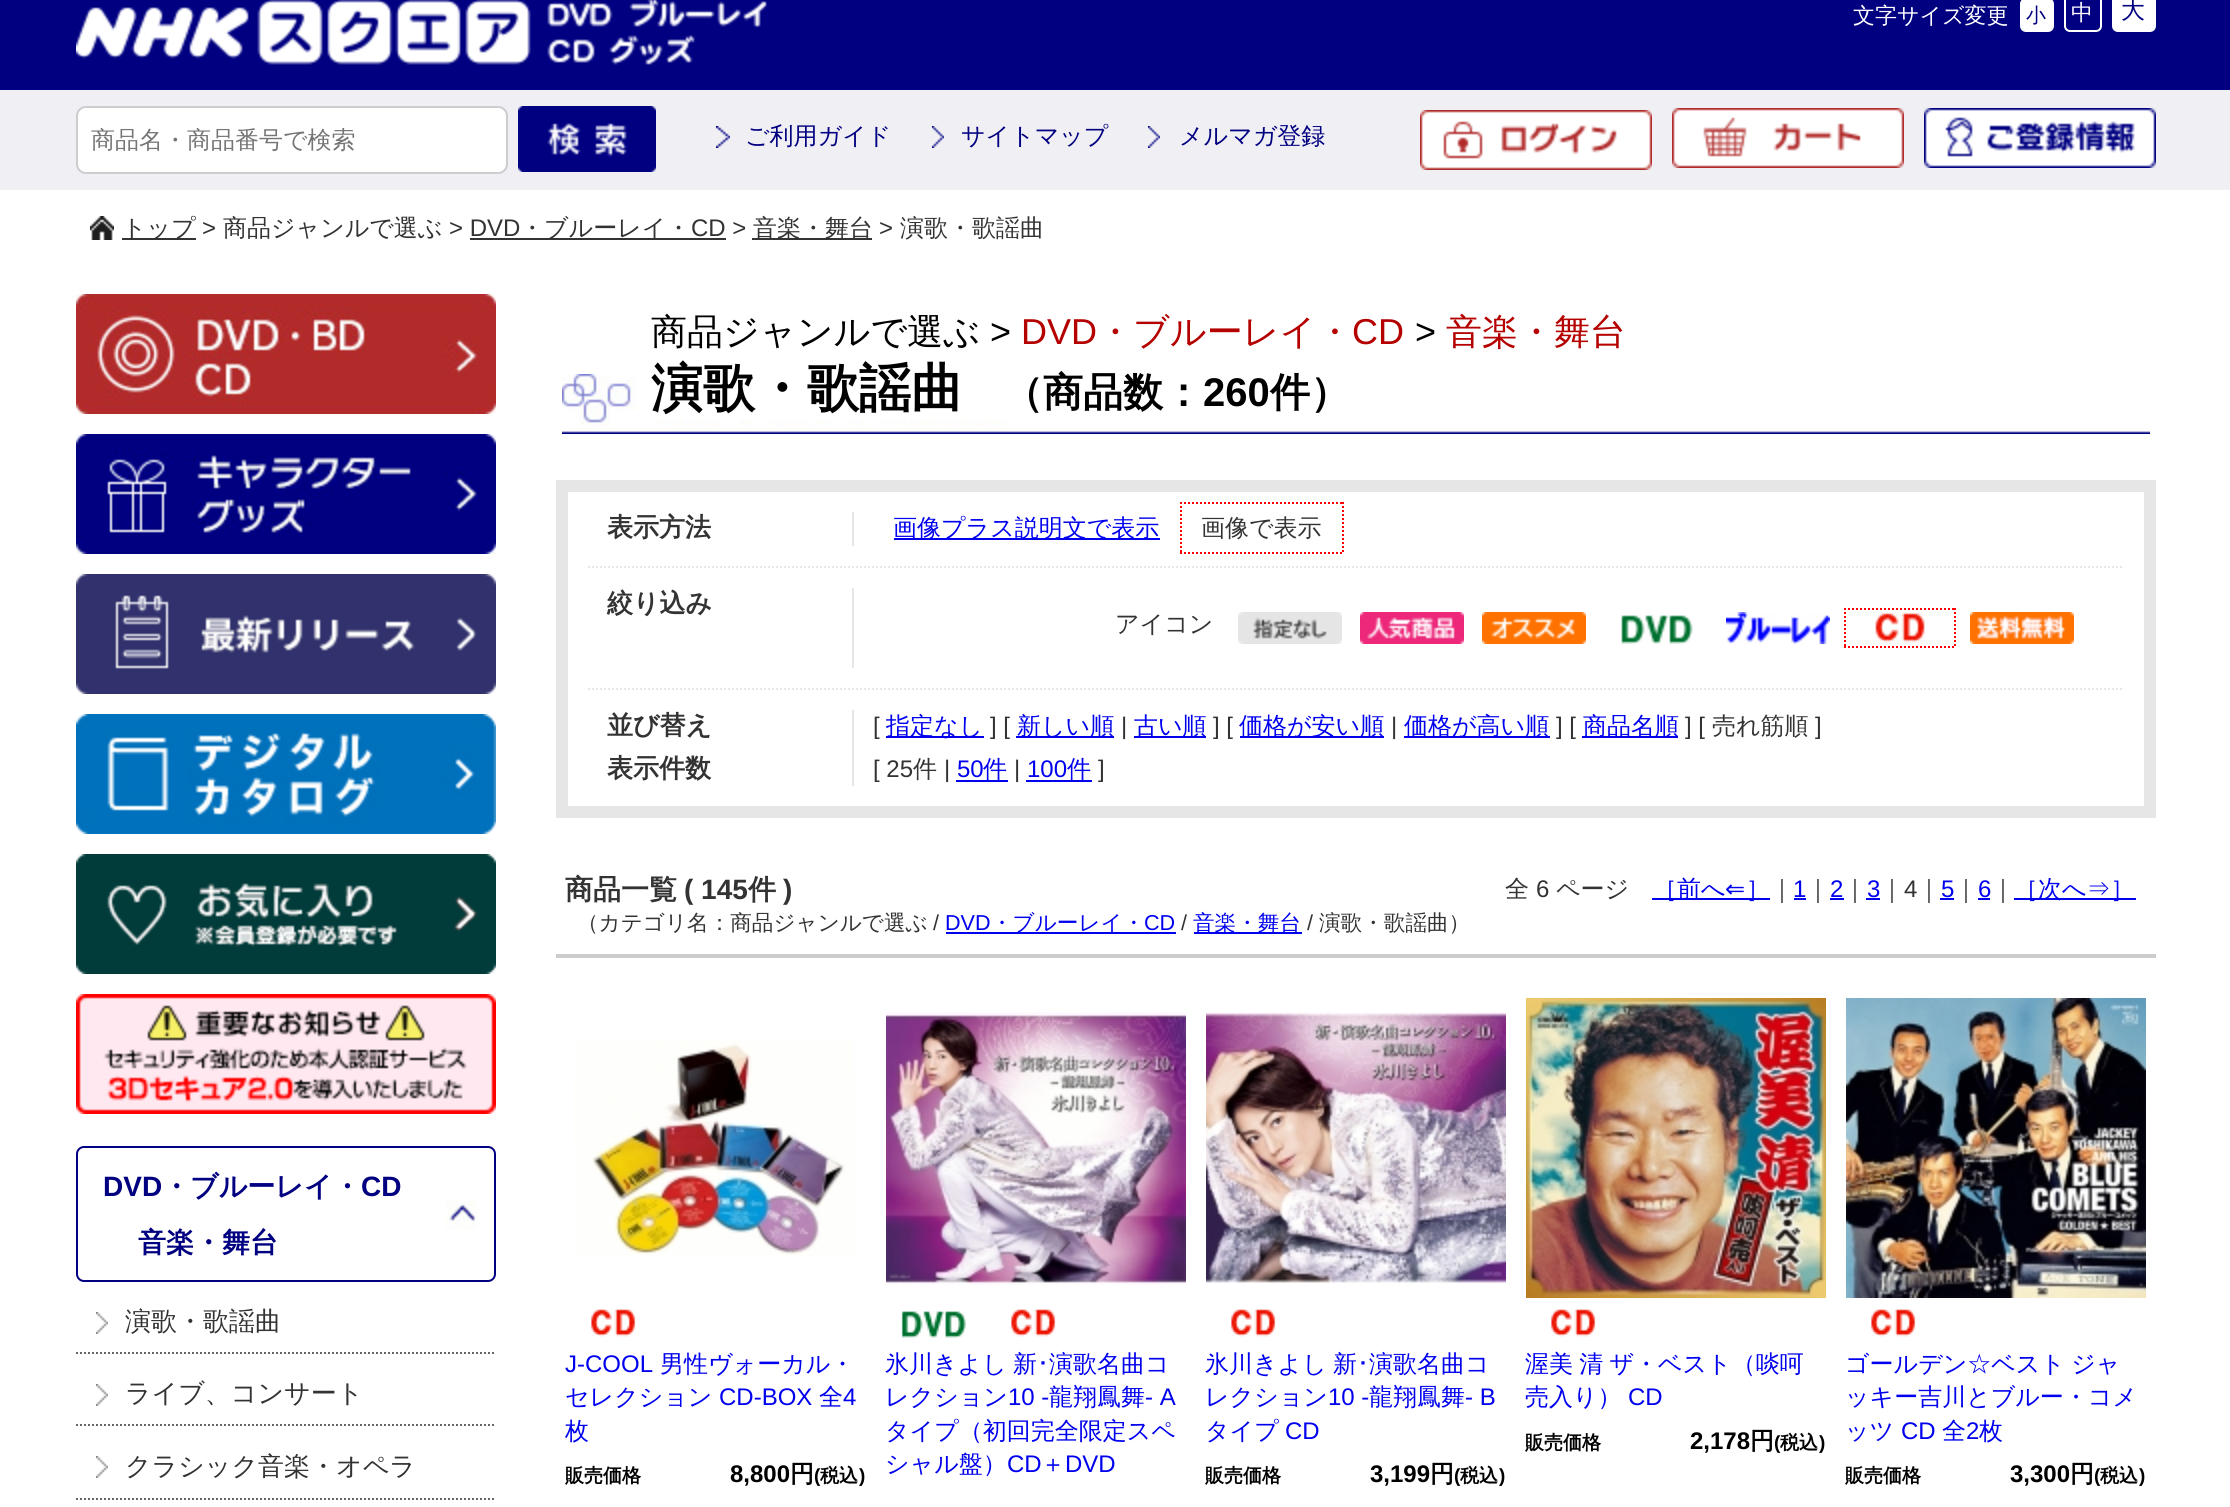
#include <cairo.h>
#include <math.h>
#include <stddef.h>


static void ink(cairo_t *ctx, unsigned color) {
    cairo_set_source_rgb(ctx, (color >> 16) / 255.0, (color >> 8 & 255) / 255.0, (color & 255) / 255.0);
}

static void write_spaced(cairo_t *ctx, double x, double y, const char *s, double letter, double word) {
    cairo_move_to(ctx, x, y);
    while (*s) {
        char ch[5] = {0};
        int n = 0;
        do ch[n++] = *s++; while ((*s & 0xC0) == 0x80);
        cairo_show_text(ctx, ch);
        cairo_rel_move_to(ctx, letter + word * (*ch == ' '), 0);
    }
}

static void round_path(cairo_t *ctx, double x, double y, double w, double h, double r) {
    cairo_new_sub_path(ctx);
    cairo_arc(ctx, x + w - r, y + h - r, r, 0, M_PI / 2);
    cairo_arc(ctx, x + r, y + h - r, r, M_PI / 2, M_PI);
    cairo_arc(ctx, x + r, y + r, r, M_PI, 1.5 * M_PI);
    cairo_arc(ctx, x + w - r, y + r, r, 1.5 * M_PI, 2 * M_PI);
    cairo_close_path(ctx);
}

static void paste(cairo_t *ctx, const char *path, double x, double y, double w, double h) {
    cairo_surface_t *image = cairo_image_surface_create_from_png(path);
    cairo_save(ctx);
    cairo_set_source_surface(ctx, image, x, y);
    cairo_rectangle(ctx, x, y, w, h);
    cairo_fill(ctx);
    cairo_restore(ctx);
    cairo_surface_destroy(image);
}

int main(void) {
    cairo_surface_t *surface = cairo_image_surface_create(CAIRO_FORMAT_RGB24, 2230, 1507);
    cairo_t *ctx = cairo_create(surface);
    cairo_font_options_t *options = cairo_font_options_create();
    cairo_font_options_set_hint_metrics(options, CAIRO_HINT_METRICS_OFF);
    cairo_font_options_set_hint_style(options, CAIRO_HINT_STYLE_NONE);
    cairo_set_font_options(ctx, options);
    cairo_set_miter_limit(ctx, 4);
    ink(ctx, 0xFFFFFF);
    cairo_paint(ctx);
    ink(ctx, 0x010080);
    cairo_rectangle(ctx, 0, 0, 2230, 90);
    cairo_fill(ctx);
    paste(ctx, "media/1.png", 76, 0, 691, 65);
    cairo_select_font_face(ctx, "WenQuanYi Zen Hei Medium", CAIRO_FONT_SLANT_NORMAL, CAIRO_FONT_WEIGHT_NORMAL);
    cairo_set_font_size(ctx, 22);
    ink(ctx, 0xFFFFFF);
    cairo_move_to(ctx, 1853, 23);
    cairo_show_text(ctx, "文字サイズ変更");
    round_path(ctx, 2021, -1, 32, 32, 5);
    cairo_fill_preserve(ctx);
    cairo_stroke(ctx);
    cairo_set_font_size(ctx, 20);
    ink(ctx, 0x010080);
    cairo_move_to(ctx, 2026, 22);
    cairo_show_text(ctx, "小");
    round_path(ctx, 2065, -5, 36, 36, 5);
    ink(ctx, 0xFFFFFF);
    cairo_stroke(ctx);
    cairo_set_font_size(ctx, 22);
    cairo_move_to(ctx, 2071, 20);
    cairo_show_text(ctx, "中");
    round_path(ctx, 2113, -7, 42, 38, 5);
    cairo_fill_preserve(ctx);
    cairo_stroke(ctx);
    cairo_set_font_size(ctx, 24);
    ink(ctx, 0x010080);
    cairo_move_to(ctx, 2121, 18);
    cairo_show_text(ctx, "大");
    ink(ctx, 0xF0EFF4);
    cairo_rectangle(ctx, 0, 90, 2230, 100);
    cairo_fill(ctx);
    ink(ctx, 0xFFFFFF);
    round_path(ctx, 77, 107, 430, 66, 9);
    cairo_fill_preserve(ctx);
    ink(ctx, 0xCCCCCC);
    cairo_stroke(ctx);
    ink(ctx, 0x757575);
    cairo_move_to(ctx, 91, 148);
    cairo_show_text(ctx, "商品名・商品番号で検索");
    paste(ctx, "media/2.png", 518, 106, 138, 66);
    paste(ctx, "media/3.png", 518, 106, 138, 66);
    paste(ctx, "media/4.png", 716, 126, 14, 22);
    ink(ctx, 0x010080);
    cairo_move_to(ctx, 745, 144);
    cairo_show_text(ctx, "ご利用ガイド");
    paste(ctx, "media/5.png", 932, 126, 12, 22);
    cairo_move_to(ctx, 961, 144);
    cairo_show_text(ctx, "サイトマップ");
    paste(ctx, "media/5.png", 1148, 126, 12, 22);
    cairo_move_to(ctx, 1179, 144);
    cairo_show_text(ctx, "メルマガ登録");
    paste(ctx, "media/6.png", 1420, 110, 232, 60);
    paste(ctx, "media/7.png", 1672, 108, 232, 60);
    paste(ctx, "media/8.png", 1924, 108, 232, 60);
    paste(ctx, "media/9.png", 90, 216, 24, 24);
    ink(ctx, 0x333333);
    cairo_rectangle(ctx, 122, 238, 74, 2);
    cairo_fill(ctx);
    cairo_move_to(ctx, 122, 236);
    cairo_show_text(ctx, "トップ");
    cairo_select_font_face(ctx, "Liberation Sans", CAIRO_FONT_SLANT_NORMAL, CAIRO_FONT_WEIGHT_NORMAL);
    cairo_move_to(ctx, 202, 236);
    cairo_show_text(ctx, ">");
    cairo_select_font_face(ctx, "WenQuanYi Zen Hei Medium", CAIRO_FONT_SLANT_NORMAL, CAIRO_FONT_WEIGHT_NORMAL);
    cairo_move_to(ctx, 223, 236);
    cairo_show_text(ctx, "商品ジャンルで選ぶ");
    cairo_select_font_face(ctx, "Liberation Sans", CAIRO_FONT_SLANT_NORMAL, CAIRO_FONT_WEIGHT_NORMAL);
    cairo_move_to(ctx, 449, 236);
    cairo_show_text(ctx, "> DVD");
    cairo_rectangle(ctx, 470, 238, 256, 2);
    cairo_fill(ctx);
    cairo_select_font_face(ctx, "WenQuanYi Zen Hei Medium", CAIRO_FONT_SLANT_NORMAL, CAIRO_FONT_WEIGHT_NORMAL);
    cairo_move_to(ctx, 520, 236);
    cairo_show_text(ctx, "・ブルーレイ・");
    cairo_select_font_face(ctx, "Liberation Sans", CAIRO_FONT_SLANT_NORMAL, CAIRO_FONT_WEIGHT_NORMAL);
    cairo_move_to(ctx, 691, 236);
    cairo_show_text(ctx, "CD >");
    cairo_rectangle(ctx, 752, 238, 120, 2);
    cairo_fill(ctx);
    cairo_select_font_face(ctx, "WenQuanYi Zen Hei Medium", CAIRO_FONT_SLANT_NORMAL, CAIRO_FONT_WEIGHT_NORMAL);
    cairo_move_to(ctx, 753, 236);
    cairo_show_text(ctx, "音楽・舞台");
    cairo_select_font_face(ctx, "Liberation Sans", CAIRO_FONT_SLANT_NORMAL, CAIRO_FONT_WEIGHT_NORMAL);
    cairo_move_to(ctx, 879, 236);
    cairo_show_text(ctx, ">");
    cairo_select_font_face(ctx, "WenQuanYi Zen Hei Medium", CAIRO_FONT_SLANT_NORMAL, CAIRO_FONT_WEIGHT_NORMAL);
    cairo_move_to(ctx, 900, 236);
    cairo_show_text(ctx, "演歌・歌謡曲");
    paste(ctx, "media/10.png", 76, 294, 420, 120);
    paste(ctx, "media/11.png", 76, 434, 420, 120);
    paste(ctx, "media/12.png", 76, 574, 420, 120);
    paste(ctx, "media/13.png", 76, 714, 420, 120);
    paste(ctx, "media/14.png", 76, 854, 420, 120);
    paste(ctx, "media/15.png", 76, 994, 420, 120);
    paste(ctx, "media/16.png", 446, 1200, 31, 30);
    round_path(ctx, 77, 1147, 418, 134, 7);
    ink(ctx, 0x010080);
    cairo_stroke(ctx);
    cairo_select_font_face(ctx, "Liberation Sans", CAIRO_FONT_SLANT_NORMAL, CAIRO_FONT_WEIGHT_BOLD);
    cairo_set_font_size(ctx, 28);
    cairo_move_to(ctx, 103, 1196);
    cairo_show_text(ctx, "DVD");
    cairo_select_font_face(ctx, "WenQuanYi Zen Hei", CAIRO_FONT_SLANT_NORMAL, CAIRO_FONT_WEIGHT_BOLD);
    cairo_move_to(ctx, 162, 1196);
    cairo_show_text(ctx, "・ブルーレイ・");
    cairo_select_font_face(ctx, "Liberation Sans", CAIRO_FONT_SLANT_NORMAL, CAIRO_FONT_WEIGHT_BOLD);
    cairo_move_to(ctx, 361, 1196);
    cairo_show_text(ctx, "CD");
    cairo_select_font_face(ctx, "WenQuanYi Zen Hei", CAIRO_FONT_SLANT_NORMAL, CAIRO_FONT_WEIGHT_BOLD);
    cairo_move_to(ctx, 138, 1252);
    cairo_show_text(ctx, "音楽・舞台");
    paste(ctx, "media/17.png", 96, 1312, 12, 22);
    cairo_new_path(ctx);
    cairo_move_to(ctx, 76, 1353);
    cairo_line_to(ctx, 496, 1353);
    ink(ctx, 0x666666);
    cairo_set_dash(ctx, (double[]){2, 2}, 2, 0);
    cairo_stroke(ctx);
    cairo_select_font_face(ctx, "WenQuanYi Zen Hei Medium", CAIRO_FONT_SLANT_NORMAL, CAIRO_FONT_WEIGHT_NORMAL);
    cairo_set_font_size(ctx, 26);
    ink(ctx, 0x333333);
    cairo_move_to(ctx, 125, 1330);
    cairo_show_text(ctx, "演歌・歌謡曲");
    paste(ctx, "media/17.png", 96, 1384, 12, 22);
    cairo_new_path(ctx);
    cairo_move_to(ctx, 76, 1425);
    cairo_line_to(ctx, 496, 1425);
    ink(ctx, 0x666666);
    cairo_stroke(ctx);
    ink(ctx, 0x333333);
    cairo_move_to(ctx, 125, 1402);
    cairo_show_text(ctx, "ライブ、コンサート");
    paste(ctx, "media/17.png", 96, 1456, 12, 22);
    cairo_new_path(ctx);
    cairo_move_to(ctx, 76, 1499);
    cairo_line_to(ctx, 496, 1499);
    ink(ctx, 0x666666);
    cairo_stroke(ctx);
    ink(ctx, 0x333333);
    cairo_move_to(ctx, 125, 1475);
    cairo_show_text(ctx, "クラシック音楽・オペラ");
    paste(ctx, "media/18.png", 562, 374, 1588, 60);
    cairo_set_font_size(ctx, 36);
    ink(ctx, 0x000000);
    cairo_move_to(ctx, 651, 344);
    cairo_show_text(ctx, "商品ジャンルで選ぶ");
    cairo_select_font_face(ctx, "Liberation Sans", CAIRO_FONT_SLANT_NORMAL, CAIRO_FONT_WEIGHT_NORMAL);
    cairo_move_to(ctx, 990, 344);
    cairo_show_text(ctx, ">");
    ink(ctx, 0xB50000);
    cairo_move_to(ctx, 1021, 344);
    cairo_show_text(ctx, "DVD");
    cairo_select_font_face(ctx, "WenQuanYi Zen Hei Medium", CAIRO_FONT_SLANT_NORMAL, CAIRO_FONT_WEIGHT_NORMAL);
    cairo_move_to(ctx, 1097, 344);
    cairo_show_text(ctx, "・ブルーレイ・");
    cairo_select_font_face(ctx, "Liberation Sans", CAIRO_FONT_SLANT_NORMAL, CAIRO_FONT_WEIGHT_NORMAL);
    cairo_move_to(ctx, 1352, 344);
    cairo_show_text(ctx, "CD");
    ink(ctx, 0x000000);
    cairo_move_to(ctx, 1415, 344);
    cairo_show_text(ctx, ">");
    cairo_select_font_face(ctx, "WenQuanYi Zen Hei Medium", CAIRO_FONT_SLANT_NORMAL, CAIRO_FONT_WEIGHT_NORMAL);
    ink(ctx, 0xB50000);
    cairo_move_to(ctx, 1446, 344);
    cairo_show_text(ctx, "音楽・舞台");
    cairo_select_font_face(ctx, "WenQuanYi Zen Hei", CAIRO_FONT_SLANT_NORMAL, CAIRO_FONT_WEIGHT_BOLD);
    cairo_set_font_size(ctx, 52);
    ink(ctx, 0x000000);
    cairo_move_to(ctx, 651, 406);
    cairo_show_text(ctx, "演歌・歌謡曲");
    cairo_set_font_size(ctx, 40);
    cairo_move_to(ctx, 1003, 406);
    cairo_show_text(ctx, "（商品数：");
    cairo_select_font_face(ctx, "Liberation Sans", CAIRO_FONT_SLANT_NORMAL, CAIRO_FONT_WEIGHT_BOLD);
    cairo_move_to(ctx, 1203, 406);
    cairo_show_text(ctx, "260");
    cairo_select_font_face(ctx, "WenQuanYi Zen Hei", CAIRO_FONT_SLANT_NORMAL, CAIRO_FONT_WEIGHT_BOLD);
    cairo_move_to(ctx, 1270, 406);
    cairo_show_text(ctx, "件）");
    cairo_rectangle(ctx, 562, 486, 1588, 326);
    ink(ctx, 0xE6E6E6);
    cairo_set_line_width(ctx, 12);
    cairo_set_dash(ctx, NULL, 0, 0);
    cairo_stroke(ctx);
    cairo_new_path(ctx);
    cairo_move_to(ctx, 588, 567);
    cairo_line_to(ctx, 2124, 567);
    cairo_set_line_width(ctx, 2);
    cairo_set_dash(ctx, (double[]){2, 2}, 2, 0);
    cairo_stroke(ctx);
    cairo_set_font_size(ctx, 26);
    ink(ctx, 0x333333);
    cairo_move_to(ctx, 607, 536);
    cairo_show_text(ctx, "表示方法");
    ink(ctx, 0xE6E6E6);
    cairo_rectangle(ctx, 852, 512, 2, 34);
    cairo_fill(ctx);
    ink(ctx, 0x0000EE);
    cairo_rectangle(ctx, 894, 538, 266, 2);
    cairo_fill(ctx);
    cairo_select_font_face(ctx, "WenQuanYi Zen Hei Medium", CAIRO_FONT_SLANT_NORMAL, CAIRO_FONT_WEIGHT_NORMAL);
    cairo_set_font_size(ctx, 24);
    cairo_move_to(ctx, 893, 536);
    cairo_show_text(ctx, "画像プラス説明文で表示");
    ink(ctx, 0x333333);
    cairo_move_to(ctx, 1201, 536);
    cairo_show_text(ctx, "画像で表示");
    cairo_new_path(ctx);
    cairo_move_to(ctx, 1180, 503);
    cairo_line_to(ctx, 1344, 503);
    ink(ctx, 0xFF0000);
    cairo_stroke(ctx);
    cairo_new_path(ctx);
    cairo_move_to(ctx, 1343, 502);
    cairo_line_to(ctx, 1343, 554);
    cairo_stroke(ctx);
    cairo_new_path(ctx);
    cairo_move_to(ctx, 1180, 553);
    cairo_line_to(ctx, 1344, 553);
    cairo_stroke(ctx);
    cairo_new_path(ctx);
    cairo_move_to(ctx, 1181, 502);
    cairo_line_to(ctx, 1181, 554);
    cairo_stroke(ctx);
    cairo_new_path(ctx);
    cairo_move_to(ctx, 588, 689);
    cairo_line_to(ctx, 2124, 689);
    ink(ctx, 0xE6E6E6);
    cairo_stroke(ctx);
    cairo_select_font_face(ctx, "WenQuanYi Zen Hei", CAIRO_FONT_SLANT_NORMAL, CAIRO_FONT_WEIGHT_BOLD);
    cairo_set_font_size(ctx, 26);
    ink(ctx, 0x333333);
    cairo_move_to(ctx, 607, 612);
    cairo_show_text(ctx, "絞り込み");
    ink(ctx, 0xE6E6E6);
    cairo_rectangle(ctx, 852, 588, 2, 80);
    cairo_fill(ctx);
    cairo_select_font_face(ctx, "WenQuanYi Zen Hei Medium", CAIRO_FONT_SLANT_NORMAL, CAIRO_FONT_WEIGHT_NORMAL);
    cairo_set_font_size(ctx, 24);
    ink(ctx, 0x333333);
    cairo_move_to(ctx, 1115, 632);
    cairo_show_text(ctx, "アイコン");
    cairo_new_path(ctx);
    cairo_move_to(ctx, 1844, 609);
    cairo_line_to(ctx, 1956, 609);
    ink(ctx, 0xFF0000);
    cairo_stroke(ctx);
    paste(ctx, "media/19.png", 1238, 612, 104, 32);
    paste(ctx, "media/20.png", 1360, 612, 104, 32);
    paste(ctx, "media/21.png", 1482, 612, 104, 32);
    paste(ctx, "media/22.png", 1621, 615, 72, 29);
    paste(ctx, "media/23.png", 1726, 612, 104, 32);
    cairo_new_path(ctx);
    cairo_move_to(ctx, 1845, 608);
    cairo_line_to(ctx, 1845, 648);
    cairo_stroke(ctx);
    paste(ctx, "media/24.png", 1875, 613, 50, 30);
    cairo_new_path(ctx);
    cairo_move_to(ctx, 1955, 608);
    cairo_line_to(ctx, 1955, 648);
    cairo_stroke(ctx);
    paste(ctx, "media/25.png", 1970, 612, 104, 32);
    cairo_new_path(ctx);
    cairo_move_to(ctx, 1844, 647);
    cairo_line_to(ctx, 1956, 647);
    cairo_stroke(ctx);
    cairo_select_font_face(ctx, "WenQuanYi Zen Hei", CAIRO_FONT_SLANT_NORMAL, CAIRO_FONT_WEIGHT_BOLD);
    cairo_set_font_size(ctx, 26);
    ink(ctx, 0x333333);
    cairo_move_to(ctx, 607, 734);
    cairo_show_text(ctx, "並び替え");
    ink(ctx, 0xE6E6E6);
    cairo_rectangle(ctx, 852, 710, 2, 76);
    cairo_fill(ctx);
    cairo_select_font_face(ctx, "Liberation Sans", CAIRO_FONT_SLANT_NORMAL, CAIRO_FONT_WEIGHT_NORMAL);
    cairo_set_font_size(ctx, 24);
    ink(ctx, 0x333333);
    cairo_move_to(ctx, 873, 734);
    cairo_show_text(ctx, "[");
    ink(ctx, 0x0000EE);
    cairo_rectangle(ctx, 886, 736, 98, 2);
    cairo_fill(ctx);
    cairo_select_font_face(ctx, "WenQuanYi Zen Hei Medium", CAIRO_FONT_SLANT_NORMAL, CAIRO_FONT_WEIGHT_NORMAL);
    cairo_move_to(ctx, 886, 734);
    cairo_show_text(ctx, "指定なし");
    cairo_select_font_face(ctx, "Liberation Sans", CAIRO_FONT_SLANT_NORMAL, CAIRO_FONT_WEIGHT_NORMAL);
    ink(ctx, 0x333333);
    cairo_move_to(ctx, 990, 734);
    cairo_show_text(ctx, "] [");
    ink(ctx, 0x0000EE);
    cairo_rectangle(ctx, 1016, 736, 98, 2);
    cairo_fill(ctx);
    cairo_select_font_face(ctx, "WenQuanYi Zen Hei Medium", CAIRO_FONT_SLANT_NORMAL, CAIRO_FONT_WEIGHT_NORMAL);
    cairo_move_to(ctx, 1017, 734);
    cairo_show_text(ctx, "新しい順");
    cairo_select_font_face(ctx, "Liberation Sans", CAIRO_FONT_SLANT_NORMAL, CAIRO_FONT_WEIGHT_NORMAL);
    ink(ctx, 0x333333);
    cairo_move_to(ctx, 1121, 734);
    cairo_show_text(ctx, "|");
    ink(ctx, 0x0000EE);
    cairo_rectangle(ctx, 1134, 736, 72, 2);
    cairo_fill(ctx);
    cairo_select_font_face(ctx, "WenQuanYi Zen Hei Medium", CAIRO_FONT_SLANT_NORMAL, CAIRO_FONT_WEIGHT_NORMAL);
    cairo_move_to(ctx, 1134, 734);
    cairo_show_text(ctx, "古い順");
    cairo_select_font_face(ctx, "Liberation Sans", CAIRO_FONT_SLANT_NORMAL, CAIRO_FONT_WEIGHT_NORMAL);
    ink(ctx, 0x333333);
    cairo_move_to(ctx, 1213, 734);
    cairo_show_text(ctx, "] [");
    ink(ctx, 0x0000EE);
    cairo_rectangle(ctx, 1240, 736, 144, 2);
    cairo_fill(ctx);
    cairo_select_font_face(ctx, "WenQuanYi Zen Hei Medium", CAIRO_FONT_SLANT_NORMAL, CAIRO_FONT_WEIGHT_NORMAL);
    cairo_move_to(ctx, 1239, 734);
    cairo_show_text(ctx, "価格が安い順");
    cairo_select_font_face(ctx, "Liberation Sans", CAIRO_FONT_SLANT_NORMAL, CAIRO_FONT_WEIGHT_NORMAL);
    ink(ctx, 0x333333);
    cairo_move_to(ctx, 1391, 734);
    cairo_show_text(ctx, "|");
    ink(ctx, 0x0000EE);
    cairo_rectangle(ctx, 1404, 736, 146, 2);
    cairo_fill(ctx);
    cairo_select_font_face(ctx, "WenQuanYi Zen Hei Medium", CAIRO_FONT_SLANT_NORMAL, CAIRO_FONT_WEIGHT_NORMAL);
    cairo_move_to(ctx, 1404, 734);
    cairo_show_text(ctx, "価格が高い順");
    cairo_select_font_face(ctx, "Liberation Sans", CAIRO_FONT_SLANT_NORMAL, CAIRO_FONT_WEIGHT_NORMAL);
    ink(ctx, 0x333333);
    cairo_move_to(ctx, 1556, 734);
    cairo_show_text(ctx, "] [");
    ink(ctx, 0x0000EE);
    cairo_rectangle(ctx, 1582, 736, 96, 2);
    cairo_fill(ctx);
    cairo_select_font_face(ctx, "WenQuanYi Zen Hei Medium", CAIRO_FONT_SLANT_NORMAL, CAIRO_FONT_WEIGHT_NORMAL);
    cairo_move_to(ctx, 1583, 734);
    cairo_show_text(ctx, "商品名順");
    cairo_select_font_face(ctx, "Liberation Sans", CAIRO_FONT_SLANT_NORMAL, CAIRO_FONT_WEIGHT_NORMAL);
    ink(ctx, 0x333333);
    cairo_move_to(ctx, 1685, 734);
    cairo_show_text(ctx, "] [");
    cairo_select_font_face(ctx, "WenQuanYi Zen Hei Medium", CAIRO_FONT_SLANT_NORMAL, CAIRO_FONT_WEIGHT_NORMAL);
    cairo_move_to(ctx, 1712, 734);
    cairo_show_text(ctx, "売れ筋順");
    cairo_select_font_face(ctx, "Liberation Sans", CAIRO_FONT_SLANT_NORMAL, CAIRO_FONT_WEIGHT_NORMAL);
    cairo_move_to(ctx, 1815, 734);
    cairo_show_text(ctx, "]");
    cairo_select_font_face(ctx, "WenQuanYi Zen Hei", CAIRO_FONT_SLANT_NORMAL, CAIRO_FONT_WEIGHT_BOLD);
    cairo_set_font_size(ctx, 26);
    cairo_move_to(ctx, 607, 777);
    cairo_show_text(ctx, "表示件数");
    cairo_select_font_face(ctx, "Liberation Sans", CAIRO_FONT_SLANT_NORMAL, CAIRO_FONT_WEIGHT_NORMAL);
    cairo_set_font_size(ctx, 24);
    cairo_move_to(ctx, 873, 777);
    cairo_show_text(ctx, "[ 25");
    cairo_select_font_face(ctx, "WenQuanYi Zen Hei Medium", CAIRO_FONT_SLANT_NORMAL, CAIRO_FONT_WEIGHT_NORMAL);
    cairo_move_to(ctx, 913, 777);
    cairo_show_text(ctx, "件");
    cairo_select_font_face(ctx, "Liberation Sans", CAIRO_FONT_SLANT_NORMAL, CAIRO_FONT_WEIGHT_NORMAL);
    cairo_move_to(ctx, 944, 777);
    cairo_show_text(ctx, "|");
    ink(ctx, 0x0000EE);
    cairo_move_to(ctx, 957, 777);
    cairo_show_text(ctx, "50");
    cairo_rectangle(ctx, 956, 780, 52, 2);
    cairo_fill(ctx);
    cairo_select_font_face(ctx, "WenQuanYi Zen Hei Medium", CAIRO_FONT_SLANT_NORMAL, CAIRO_FONT_WEIGHT_NORMAL);
    cairo_move_to(ctx, 983, 777);
    cairo_show_text(ctx, "件");
    cairo_select_font_face(ctx, "Liberation Sans", CAIRO_FONT_SLANT_NORMAL, CAIRO_FONT_WEIGHT_NORMAL);
    ink(ctx, 0x333333);
    cairo_move_to(ctx, 1014, 777);
    cairo_show_text(ctx, "|");
    ink(ctx, 0x0000EE);
    cairo_move_to(ctx, 1027, 777);
    cairo_show_text(ctx, "100");
    cairo_rectangle(ctx, 1026, 780, 66, 2);
    cairo_fill(ctx);
    cairo_select_font_face(ctx, "WenQuanYi Zen Hei Medium", CAIRO_FONT_SLANT_NORMAL, CAIRO_FONT_WEIGHT_NORMAL);
    cairo_move_to(ctx, 1067, 777);
    cairo_show_text(ctx, "件");
    cairo_select_font_face(ctx, "Liberation Sans", CAIRO_FONT_SLANT_NORMAL, CAIRO_FONT_WEIGHT_NORMAL);
    ink(ctx, 0x333333);
    cairo_move_to(ctx, 1098, 777);
    cairo_show_text(ctx, "]");
    ink(ctx, 0xCCCCCC);
    cairo_rectangle(ctx, 556, 954, 1600, 4);
    cairo_fill(ctx);
    cairo_select_font_face(ctx, "WenQuanYi Zen Hei", CAIRO_FONT_SLANT_NORMAL, CAIRO_FONT_WEIGHT_BOLD);
    cairo_set_font_size(ctx, 28);
    ink(ctx, 0x333333);
    cairo_move_to(ctx, 565, 899);
    cairo_show_text(ctx, "商品一覧");
    cairo_select_font_face(ctx, "Liberation Sans", CAIRO_FONT_SLANT_NORMAL, CAIRO_FONT_WEIGHT_BOLD);
    cairo_move_to(ctx, 684, 899);
    cairo_show_text(ctx, "( 145");
    cairo_select_font_face(ctx, "WenQuanYi Zen Hei", CAIRO_FONT_SLANT_NORMAL, CAIRO_FONT_WEIGHT_BOLD);
    cairo_move_to(ctx, 748, 899);
    cairo_show_text(ctx, "件");
    cairo_select_font_face(ctx, "Liberation Sans", CAIRO_FONT_SLANT_NORMAL, CAIRO_FONT_WEIGHT_BOLD);
    cairo_move_to(ctx, 783, 899);
    cairo_show_text(ctx, ")");
    cairo_select_font_face(ctx, "WenQuanYi Zen Hei Medium", CAIRO_FONT_SLANT_NORMAL, CAIRO_FONT_WEIGHT_NORMAL);
    cairo_set_font_size(ctx, 24);
    cairo_move_to(ctx, 1505, 897);
    cairo_show_text(ctx, "全");
    cairo_select_font_face(ctx, "Liberation Sans", CAIRO_FONT_SLANT_NORMAL, CAIRO_FONT_WEIGHT_NORMAL);
    cairo_move_to(ctx, 1536, 897);
    cairo_show_text(ctx, "6");
    cairo_select_font_face(ctx, "WenQuanYi Zen Hei Medium", CAIRO_FONT_SLANT_NORMAL, CAIRO_FONT_WEIGHT_NORMAL);
    cairo_move_to(ctx, 1556, 897);
    cairo_show_text(ctx, "ページ");
    ink(ctx, 0x0000EE);
    cairo_rectangle(ctx, 1652, 898, 118, 2);
    cairo_fill(ctx);
    cairo_move_to(ctx, 1653, 897);
    cairo_show_text(ctx, "［前へ");
    cairo_select_font_face(ctx, "DejaVu Sans", CAIRO_FONT_SLANT_NORMAL, CAIRO_FONT_WEIGHT_NORMAL);
    cairo_move_to(ctx, 1725, 897);
    cairo_show_text(ctx, "⇐");
    cairo_select_font_face(ctx, "WenQuanYi Zen Hei Medium", CAIRO_FONT_SLANT_NORMAL, CAIRO_FONT_WEIGHT_NORMAL);
    cairo_move_to(ctx, 1746, 897);
    cairo_show_text(ctx, "］");
    ink(ctx, 0x333333);
    cairo_move_to(ctx, 1770, 897);
    cairo_show_text(ctx, "｜");
    cairo_select_font_face(ctx, "Liberation Sans", CAIRO_FONT_SLANT_NORMAL, CAIRO_FONT_WEIGHT_NORMAL);
    ink(ctx, 0x0000EE);
    cairo_move_to(ctx, 1793, 897);
    cairo_show_text(ctx, "1");
    cairo_rectangle(ctx, 1794, 898, 12, 2);
    cairo_fill(ctx);
    cairo_select_font_face(ctx, "WenQuanYi Zen Hei Medium", CAIRO_FONT_SLANT_NORMAL, CAIRO_FONT_WEIGHT_NORMAL);
    ink(ctx, 0x333333);
    cairo_move_to(ctx, 1806, 897);
    cairo_show_text(ctx, "｜");
    cairo_select_font_face(ctx, "Liberation Sans", CAIRO_FONT_SLANT_NORMAL, CAIRO_FONT_WEIGHT_NORMAL);
    ink(ctx, 0x0000EE);
    cairo_move_to(ctx, 1830, 897);
    cairo_show_text(ctx, "2");
    cairo_rectangle(ctx, 1830, 898, 14, 2);
    cairo_fill(ctx);
    cairo_select_font_face(ctx, "WenQuanYi Zen Hei Medium", CAIRO_FONT_SLANT_NORMAL, CAIRO_FONT_WEIGHT_NORMAL);
    ink(ctx, 0x333333);
    cairo_move_to(ctx, 1843, 897);
    cairo_show_text(ctx, "｜");
    cairo_select_font_face(ctx, "Liberation Sans", CAIRO_FONT_SLANT_NORMAL, CAIRO_FONT_WEIGHT_NORMAL);
    ink(ctx, 0x0000EE);
    cairo_move_to(ctx, 1867, 897);
    cairo_show_text(ctx, "3");
    cairo_rectangle(ctx, 1866, 898, 14, 2);
    cairo_fill(ctx);
    cairo_select_font_face(ctx, "WenQuanYi Zen Hei Medium", CAIRO_FONT_SLANT_NORMAL, CAIRO_FONT_WEIGHT_NORMAL);
    ink(ctx, 0x333333);
    cairo_move_to(ctx, 1880, 897);
    cairo_show_text(ctx, "｜");
    cairo_select_font_face(ctx, "Liberation Sans", CAIRO_FONT_SLANT_NORMAL, CAIRO_FONT_WEIGHT_NORMAL);
    cairo_move_to(ctx, 1904, 897);
    cairo_show_text(ctx, "4");
    cairo_select_font_face(ctx, "WenQuanYi Zen Hei Medium", CAIRO_FONT_SLANT_NORMAL, CAIRO_FONT_WEIGHT_NORMAL);
    cairo_move_to(ctx, 1917, 897);
    cairo_show_text(ctx, "｜");
    cairo_select_font_face(ctx, "Liberation Sans", CAIRO_FONT_SLANT_NORMAL, CAIRO_FONT_WEIGHT_NORMAL);
    ink(ctx, 0x0000EE);
    cairo_move_to(ctx, 1941, 897);
    cairo_show_text(ctx, "5");
    cairo_rectangle(ctx, 1940, 898, 14, 2);
    cairo_fill(ctx);
    cairo_select_font_face(ctx, "WenQuanYi Zen Hei Medium", CAIRO_FONT_SLANT_NORMAL, CAIRO_FONT_WEIGHT_NORMAL);
    ink(ctx, 0x333333);
    cairo_move_to(ctx, 1954, 897);
    cairo_show_text(ctx, "｜");
    cairo_select_font_face(ctx, "Liberation Sans", CAIRO_FONT_SLANT_NORMAL, CAIRO_FONT_WEIGHT_NORMAL);
    ink(ctx, 0x0000EE);
    cairo_move_to(ctx, 1978, 897);
    cairo_show_text(ctx, "6");
    cairo_rectangle(ctx, 1978, 898, 12, 2);
    cairo_fill(ctx);
    cairo_select_font_face(ctx, "WenQuanYi Zen Hei Medium", CAIRO_FONT_SLANT_NORMAL, CAIRO_FONT_WEIGHT_NORMAL);
    ink(ctx, 0x333333);
    cairo_move_to(ctx, 1991, 897);
    cairo_show_text(ctx, "｜");
    ink(ctx, 0x0000EE);
    cairo_rectangle(ctx, 2014, 898, 122, 2);
    cairo_fill(ctx);
    cairo_move_to(ctx, 2014, 897);
    cairo_show_text(ctx, "［次へ⇒］");
    cairo_set_font_size(ctx, 21.6);
    ink(ctx, 0x333333);
    cairo_move_to(ctx, 577, 930);
    cairo_show_text(ctx, "（カテゴリ名：商品ジャンルで選ぶ");
    cairo_select_font_face(ctx, "Liberation Sans", CAIRO_FONT_SLANT_NORMAL, CAIRO_FONT_WEIGHT_NORMAL);
    cairo_move_to(ctx, 933, 930);
    cairo_show_text(ctx, "/");
    ink(ctx, 0x0000EE);
    cairo_move_to(ctx, 945, 930);
    cairo_show_text(ctx, "DVD");
    cairo_rectangle(ctx, 946, 932, 230, 2);
    cairo_fill(ctx);
    cairo_select_font_face(ctx, "WenQuanYi Zen Hei Medium", CAIRO_FONT_SLANT_NORMAL, CAIRO_FONT_WEIGHT_NORMAL);
    cairo_move_to(ctx, 991, 930);
    cairo_show_text(ctx, "・ブルーレイ・");
    cairo_select_font_face(ctx, "Liberation Sans", CAIRO_FONT_SLANT_NORMAL, CAIRO_FONT_WEIGHT_NORMAL);
    cairo_move_to(ctx, 1144, 930);
    cairo_show_text(ctx, "CD");
    ink(ctx, 0x333333);
    cairo_move_to(ctx, 1181, 930);
    cairo_show_text(ctx, "/");
    ink(ctx, 0x0000EE);
    cairo_rectangle(ctx, 1194, 932, 108, 2);
    cairo_fill(ctx);
    cairo_select_font_face(ctx, "WenQuanYi Zen Hei Medium", CAIRO_FONT_SLANT_NORMAL, CAIRO_FONT_WEIGHT_NORMAL);
    cairo_move_to(ctx, 1193, 930);
    cairo_show_text(ctx, "音楽・舞台");
    cairo_select_font_face(ctx, "Liberation Sans", CAIRO_FONT_SLANT_NORMAL, CAIRO_FONT_WEIGHT_NORMAL);
    ink(ctx, 0x333333);
    cairo_move_to(ctx, 1307, 930);
    cairo_show_text(ctx, "/");
    cairo_select_font_face(ctx, "WenQuanYi Zen Hei Medium", CAIRO_FONT_SLANT_NORMAL, CAIRO_FONT_WEIGHT_NORMAL);
    cairo_move_to(ctx, 1319, 930);
    cairo_show_text(ctx, "演歌・歌謡曲）");
    paste(ctx, "media/26.png", 574, 1040, 280, 216);
    paste(ctx, "media/27.png", 591, 1309, 45, 28);
    cairo_select_font_face(ctx, "Liberation Sans", CAIRO_FONT_SLANT_NORMAL, CAIRO_FONT_WEIGHT_NORMAL);
    cairo_set_font_size(ctx, 24);
    ink(ctx, 0x0000EE);
    cairo_move_to(ctx, 565, 1372);
    cairo_show_text(ctx, "J-COOL");
    cairo_select_font_face(ctx, "WenQuanYi Zen Hei Medium", CAIRO_FONT_SLANT_NORMAL, CAIRO_FONT_WEIGHT_NORMAL);
    cairo_move_to(ctx, 660, 1372);
    cairo_show_text(ctx, "男性ヴォーカル・");
    cairo_move_to(ctx, 565, 1405);
    cairo_show_text(ctx, "セレクション");
    cairo_select_font_face(ctx, "Liberation Sans", CAIRO_FONT_SLANT_NORMAL, CAIRO_FONT_WEIGHT_NORMAL);
    cairo_move_to(ctx, 719, 1405);
    cairo_show_text(ctx, "CD-BOX");
    cairo_select_font_face(ctx, "WenQuanYi Zen Hei Medium", CAIRO_FONT_SLANT_NORMAL, CAIRO_FONT_WEIGHT_NORMAL);
    cairo_move_to(ctx, 819, 1405);
    cairo_show_text(ctx, "全");
    cairo_select_font_face(ctx, "Liberation Sans", CAIRO_FONT_SLANT_NORMAL, CAIRO_FONT_WEIGHT_NORMAL);
    cairo_move_to(ctx, 843, 1405);
    cairo_show_text(ctx, "4");
    cairo_select_font_face(ctx, "WenQuanYi Zen Hei Medium", CAIRO_FONT_SLANT_NORMAL, CAIRO_FONT_WEIGHT_NORMAL);
    cairo_move_to(ctx, 565, 1439);
    cairo_show_text(ctx, "枚");
    cairo_select_font_face(ctx, "WenQuanYi Zen Hei", CAIRO_FONT_SLANT_NORMAL, CAIRO_FONT_WEIGHT_BOLD);
    cairo_set_font_size(ctx, 19);
    ink(ctx, 0x000000);
    cairo_move_to(ctx, 565, 1482);
    cairo_show_text(ctx, "販売価格");
    cairo_select_font_face(ctx, "Liberation Sans", CAIRO_FONT_SLANT_NORMAL, CAIRO_FONT_WEIGHT_BOLD);
    cairo_set_font_size(ctx, 24);
    cairo_move_to(ctx, 730, 1482);
    cairo_show_text(ctx, "8,800");
    cairo_select_font_face(ctx, "WenQuanYi Zen Hei", CAIRO_FONT_SLANT_NORMAL, CAIRO_FONT_WEIGHT_BOLD);
    cairo_move_to(ctx, 790, 1482);
    cairo_show_text(ctx, "円");
    cairo_select_font_face(ctx, "Liberation Sans", CAIRO_FONT_SLANT_NORMAL, CAIRO_FONT_WEIGHT_BOLD);
    cairo_set_font_size(ctx, 19);
    cairo_move_to(ctx, 814, 1482);
    cairo_show_text(ctx, "(");
    cairo_select_font_face(ctx, "WenQuanYi Zen Hei", CAIRO_FONT_SLANT_NORMAL, CAIRO_FONT_WEIGHT_BOLD);
    cairo_move_to(ctx, 820, 1482);
    cairo_show_text(ctx, "税込");
    cairo_select_font_face(ctx, "Liberation Sans", CAIRO_FONT_SLANT_NORMAL, CAIRO_FONT_WEIGHT_BOLD);
    cairo_move_to(ctx, 859, 1482);
    cairo_show_text(ctx, ")");
    paste(ctx, "media/28.png", 886, 1012, 300, 273);
    paste(ctx, "media/29.png", 901, 1311, 65, 27);
    paste(ctx, "media/27.png", 1011, 1309, 45, 28);
    cairo_select_font_face(ctx, "WenQuanYi Zen Hei Medium", CAIRO_FONT_SLANT_NORMAL, CAIRO_FONT_WEIGHT_NORMAL);
    cairo_set_font_size(ctx, 24);
    ink(ctx, 0x0000EE);
    write_spaced(ctx, 885, 1372, "氷川きよし 新", 0, -1);
    cairo_select_font_face(ctx, "IPAPGothic", CAIRO_FONT_SLANT_NORMAL, CAIRO_FONT_WEIGHT_NORMAL);
    cairo_move_to(ctx, 1037, 1372);
    cairo_show_text(ctx, "･");
    cairo_select_font_face(ctx, "WenQuanYi Zen Hei Medium", CAIRO_FONT_SLANT_NORMAL, CAIRO_FONT_WEIGHT_NORMAL);
    cairo_move_to(ctx, 1049, 1372);
    cairo_show_text(ctx, "演歌名曲コ");
    cairo_move_to(ctx, 885, 1405);
    cairo_show_text(ctx, "レクション");
    cairo_select_font_face(ctx, "Liberation Sans", CAIRO_FONT_SLANT_NORMAL, CAIRO_FONT_WEIGHT_NORMAL);
    cairo_move_to(ctx, 1008, 1405);
    cairo_show_text(ctx, "10 -");
    cairo_select_font_face(ctx, "WenQuanYi Zen Hei Medium", CAIRO_FONT_SLANT_NORMAL, CAIRO_FONT_WEIGHT_NORMAL);
    cairo_move_to(ctx, 1049, 1405);
    cairo_show_text(ctx, "龍翔鳳舞");
    cairo_select_font_face(ctx, "Liberation Sans", CAIRO_FONT_SLANT_NORMAL, CAIRO_FONT_WEIGHT_NORMAL);
    cairo_move_to(ctx, 1145, 1405);
    cairo_show_text(ctx, "- A");
    cairo_select_font_face(ctx, "WenQuanYi Zen Hei Medium", CAIRO_FONT_SLANT_NORMAL, CAIRO_FONT_WEIGHT_NORMAL);
    cairo_move_to(ctx, 885, 1439);
    cairo_show_text(ctx, "タイプ（初回完全限定スペ");
    cairo_move_to(ctx, 885, 1472);
    cairo_show_text(ctx, "シャル盤）");
    cairo_select_font_face(ctx, "Liberation Sans", CAIRO_FONT_SLANT_NORMAL, CAIRO_FONT_WEIGHT_NORMAL);
    cairo_move_to(ctx, 1007, 1472);
    cairo_show_text(ctx, "CD");
    cairo_select_font_face(ctx, "WenQuanYi Zen Hei Medium", CAIRO_FONT_SLANT_NORMAL, CAIRO_FONT_WEIGHT_NORMAL);
    cairo_move_to(ctx, 1041, 1472);
    cairo_show_text(ctx, "＋");
    cairo_select_font_face(ctx, "Liberation Sans", CAIRO_FONT_SLANT_NORMAL, CAIRO_FONT_WEIGHT_NORMAL);
    cairo_move_to(ctx, 1065, 1472);
    cairo_show_text(ctx, "DVD");
    paste(ctx, "media/30.png", 1206, 1012, 300, 272);
    paste(ctx, "media/27.png", 1231, 1309, 45, 28);
    cairo_select_font_face(ctx, "WenQuanYi Zen Hei Medium", CAIRO_FONT_SLANT_NORMAL, CAIRO_FONT_WEIGHT_NORMAL);
    write_spaced(ctx, 1205, 1372, "氷川きよし 新", 0, -1);
    cairo_select_font_face(ctx, "IPAPGothic", CAIRO_FONT_SLANT_NORMAL, CAIRO_FONT_WEIGHT_NORMAL);
    cairo_move_to(ctx, 1357, 1372);
    cairo_show_text(ctx, "･");
    cairo_select_font_face(ctx, "WenQuanYi Zen Hei Medium", CAIRO_FONT_SLANT_NORMAL, CAIRO_FONT_WEIGHT_NORMAL);
    cairo_move_to(ctx, 1369, 1372);
    cairo_show_text(ctx, "演歌名曲コ");
    cairo_move_to(ctx, 1205, 1405);
    cairo_show_text(ctx, "レクション");
    cairo_select_font_face(ctx, "Liberation Sans", CAIRO_FONT_SLANT_NORMAL, CAIRO_FONT_WEIGHT_NORMAL);
    cairo_move_to(ctx, 1328, 1405);
    cairo_show_text(ctx, "10 -");
    cairo_select_font_face(ctx, "WenQuanYi Zen Hei Medium", CAIRO_FONT_SLANT_NORMAL, CAIRO_FONT_WEIGHT_NORMAL);
    cairo_move_to(ctx, 1369, 1405);
    cairo_show_text(ctx, "龍翔鳳舞");
    cairo_select_font_face(ctx, "Liberation Sans", CAIRO_FONT_SLANT_NORMAL, CAIRO_FONT_WEIGHT_NORMAL);
    cairo_move_to(ctx, 1465, 1405);
    cairo_show_text(ctx, "- B");
    cairo_select_font_face(ctx, "WenQuanYi Zen Hei Medium", CAIRO_FONT_SLANT_NORMAL, CAIRO_FONT_WEIGHT_NORMAL);
    cairo_move_to(ctx, 1205, 1439);
    cairo_show_text(ctx, "タイプ");
    cairo_select_font_face(ctx, "Liberation Sans", CAIRO_FONT_SLANT_NORMAL, CAIRO_FONT_WEIGHT_NORMAL);
    cairo_move_to(ctx, 1285, 1439);
    cairo_show_text(ctx, "CD");
    cairo_select_font_face(ctx, "WenQuanYi Zen Hei", CAIRO_FONT_SLANT_NORMAL, CAIRO_FONT_WEIGHT_BOLD);
    cairo_set_font_size(ctx, 19);
    ink(ctx, 0x000000);
    cairo_move_to(ctx, 1205, 1482);
    cairo_show_text(ctx, "販売価格");
    cairo_select_font_face(ctx, "Liberation Sans", CAIRO_FONT_SLANT_NORMAL, CAIRO_FONT_WEIGHT_BOLD);
    cairo_set_font_size(ctx, 24);
    cairo_move_to(ctx, 1370, 1482);
    cairo_show_text(ctx, "3,199");
    cairo_select_font_face(ctx, "WenQuanYi Zen Hei", CAIRO_FONT_SLANT_NORMAL, CAIRO_FONT_WEIGHT_BOLD);
    cairo_move_to(ctx, 1430, 1482);
    cairo_show_text(ctx, "円");
    cairo_select_font_face(ctx, "Liberation Sans", CAIRO_FONT_SLANT_NORMAL, CAIRO_FONT_WEIGHT_BOLD);
    cairo_set_font_size(ctx, 19);
    cairo_move_to(ctx, 1454, 1482);
    cairo_show_text(ctx, "(");
    cairo_select_font_face(ctx, "WenQuanYi Zen Hei", CAIRO_FONT_SLANT_NORMAL, CAIRO_FONT_WEIGHT_BOLD);
    cairo_move_to(ctx, 1460, 1482);
    cairo_show_text(ctx, "税込");
    cairo_select_font_face(ctx, "Liberation Sans", CAIRO_FONT_SLANT_NORMAL, CAIRO_FONT_WEIGHT_BOLD);
    cairo_move_to(ctx, 1499, 1482);
    cairo_show_text(ctx, ")");
    paste(ctx, "media/31.png", 1526, 998, 300, 300);
    paste(ctx, "media/27.png", 1551, 1309, 45, 28);
    cairo_select_font_face(ctx, "WenQuanYi Zen Hei Medium", CAIRO_FONT_SLANT_NORMAL, CAIRO_FONT_WEIGHT_NORMAL);
    cairo_set_font_size(ctx, 24);
    ink(ctx, 0x0000EE);
    write_spaced(ctx, 1525, 1372, "渥美 清 ザ・ベスト（啖呵", 0, -1);
    cairo_move_to(ctx, 1525, 1405);
    cairo_show_text(ctx, "売入り）");
    cairo_select_font_face(ctx, "Liberation Sans", CAIRO_FONT_SLANT_NORMAL, CAIRO_FONT_WEIGHT_NORMAL);
    cairo_move_to(ctx, 1628, 1405);
    cairo_show_text(ctx, "CD");
    cairo_select_font_face(ctx, "WenQuanYi Zen Hei", CAIRO_FONT_SLANT_NORMAL, CAIRO_FONT_WEIGHT_BOLD);
    cairo_set_font_size(ctx, 19);
    ink(ctx, 0x000000);
    cairo_move_to(ctx, 1525, 1449);
    cairo_show_text(ctx, "販売価格");
    cairo_select_font_face(ctx, "Liberation Sans", CAIRO_FONT_SLANT_NORMAL, CAIRO_FONT_WEIGHT_BOLD);
    cairo_set_font_size(ctx, 24);
    cairo_move_to(ctx, 1690, 1449);
    cairo_show_text(ctx, "2,178");
    cairo_select_font_face(ctx, "WenQuanYi Zen Hei", CAIRO_FONT_SLANT_NORMAL, CAIRO_FONT_WEIGHT_BOLD);
    cairo_move_to(ctx, 1750, 1449);
    cairo_show_text(ctx, "円");
    cairo_select_font_face(ctx, "Liberation Sans", CAIRO_FONT_SLANT_NORMAL, CAIRO_FONT_WEIGHT_BOLD);
    cairo_set_font_size(ctx, 19);
    cairo_move_to(ctx, 1774, 1449);
    cairo_show_text(ctx, "(");
    cairo_select_font_face(ctx, "WenQuanYi Zen Hei", CAIRO_FONT_SLANT_NORMAL, CAIRO_FONT_WEIGHT_BOLD);
    cairo_move_to(ctx, 1780, 1449);
    cairo_show_text(ctx, "税込");
    cairo_select_font_face(ctx, "Liberation Sans", CAIRO_FONT_SLANT_NORMAL, CAIRO_FONT_WEIGHT_BOLD);
    cairo_move_to(ctx, 1819, 1449);
    cairo_show_text(ctx, ")");
    paste(ctx, "media/32.png", 1846, 998, 300, 300);
    paste(ctx, "media/27.png", 1871, 1309, 45, 28);
    cairo_select_font_face(ctx, "WenQuanYi Zen Hei Medium", CAIRO_FONT_SLANT_NORMAL, CAIRO_FONT_WEIGHT_NORMAL);
    cairo_set_font_size(ctx, 24);
    ink(ctx, 0x0000EE);
    write_spaced(ctx, 1845, 1372, "ゴールデン☆ベスト ジャ", 0, -1);
    cairo_move_to(ctx, 1845, 1405);
    cairo_show_text(ctx, "ッキー吉川とブルー・コメ");
    cairo_move_to(ctx, 1845, 1439);
    cairo_show_text(ctx, "ッツ");
    cairo_select_font_face(ctx, "Liberation Sans", CAIRO_FONT_SLANT_NORMAL, CAIRO_FONT_WEIGHT_NORMAL);
    cairo_move_to(ctx, 1901, 1439);
    cairo_show_text(ctx, "CD");
    cairo_select_font_face(ctx, "WenQuanYi Zen Hei Medium", CAIRO_FONT_SLANT_NORMAL, CAIRO_FONT_WEIGHT_NORMAL);
    cairo_move_to(ctx, 1942, 1439);
    cairo_show_text(ctx, "全");
    cairo_select_font_face(ctx, "Liberation Sans", CAIRO_FONT_SLANT_NORMAL, CAIRO_FONT_WEIGHT_NORMAL);
    cairo_move_to(ctx, 1966, 1439);
    cairo_show_text(ctx, "2");
    cairo_select_font_face(ctx, "WenQuanYi Zen Hei Medium", CAIRO_FONT_SLANT_NORMAL, CAIRO_FONT_WEIGHT_NORMAL);
    cairo_move_to(ctx, 1979, 1439);
    cairo_show_text(ctx, "枚");
    cairo_select_font_face(ctx, "WenQuanYi Zen Hei", CAIRO_FONT_SLANT_NORMAL, CAIRO_FONT_WEIGHT_BOLD);
    cairo_set_font_size(ctx, 19);
    ink(ctx, 0x000000);
    cairo_move_to(ctx, 1845, 1482);
    cairo_show_text(ctx, "販売価格");
    cairo_select_font_face(ctx, "Liberation Sans", CAIRO_FONT_SLANT_NORMAL, CAIRO_FONT_WEIGHT_BOLD);
    cairo_set_font_size(ctx, 24);
    cairo_move_to(ctx, 2010, 1482);
    cairo_show_text(ctx, "3,300");
    cairo_select_font_face(ctx, "WenQuanYi Zen Hei", CAIRO_FONT_SLANT_NORMAL, CAIRO_FONT_WEIGHT_BOLD);
    cairo_move_to(ctx, 2070, 1482);
    cairo_show_text(ctx, "円");
    cairo_select_font_face(ctx, "Liberation Sans", CAIRO_FONT_SLANT_NORMAL, CAIRO_FONT_WEIGHT_BOLD);
    cairo_set_font_size(ctx, 19);
    cairo_move_to(ctx, 2094, 1482);
    cairo_show_text(ctx, "(");
    cairo_select_font_face(ctx, "WenQuanYi Zen Hei", CAIRO_FONT_SLANT_NORMAL, CAIRO_FONT_WEIGHT_BOLD);
    cairo_move_to(ctx, 2100, 1482);
    cairo_show_text(ctx, "税込");
    cairo_select_font_face(ctx, "Liberation Sans", CAIRO_FONT_SLANT_NORMAL, CAIRO_FONT_WEIGHT_BOLD);
    cairo_move_to(ctx, 2139, 1482);
    cairo_show_text(ctx, ")");
    cairo_surface_write_to_png(surface, "image.png");
    cairo_font_options_destroy(options);
    cairo_destroy(ctx);
    cairo_surface_destroy(surface);
    return 0;
}
